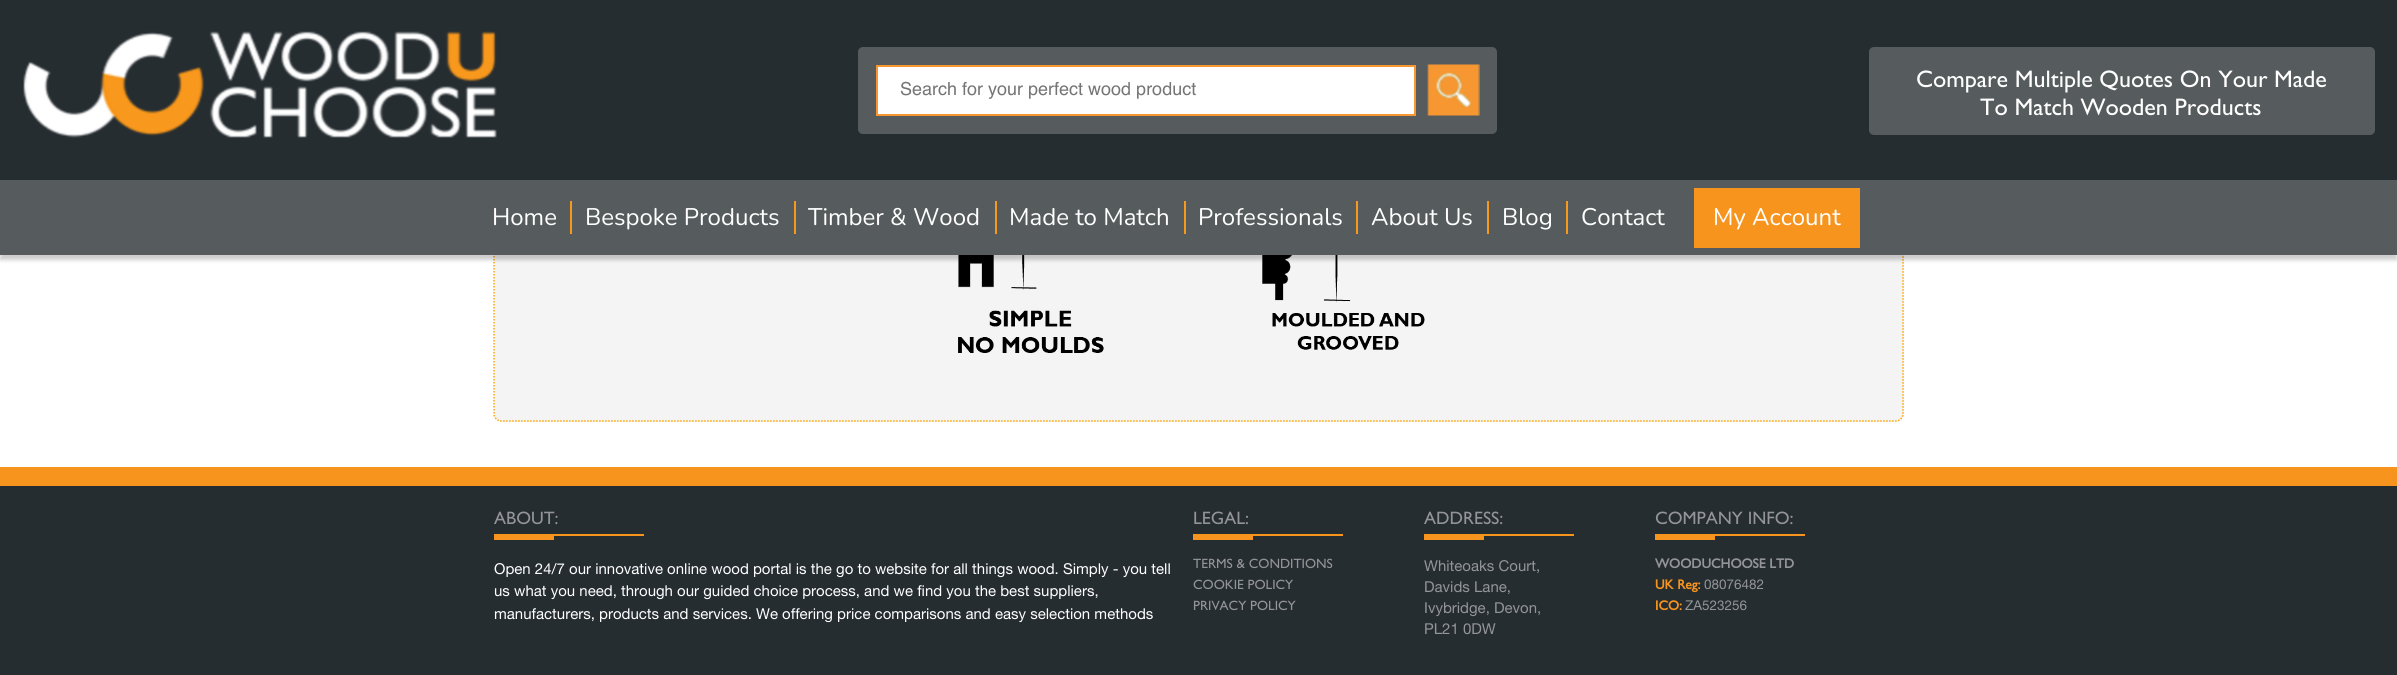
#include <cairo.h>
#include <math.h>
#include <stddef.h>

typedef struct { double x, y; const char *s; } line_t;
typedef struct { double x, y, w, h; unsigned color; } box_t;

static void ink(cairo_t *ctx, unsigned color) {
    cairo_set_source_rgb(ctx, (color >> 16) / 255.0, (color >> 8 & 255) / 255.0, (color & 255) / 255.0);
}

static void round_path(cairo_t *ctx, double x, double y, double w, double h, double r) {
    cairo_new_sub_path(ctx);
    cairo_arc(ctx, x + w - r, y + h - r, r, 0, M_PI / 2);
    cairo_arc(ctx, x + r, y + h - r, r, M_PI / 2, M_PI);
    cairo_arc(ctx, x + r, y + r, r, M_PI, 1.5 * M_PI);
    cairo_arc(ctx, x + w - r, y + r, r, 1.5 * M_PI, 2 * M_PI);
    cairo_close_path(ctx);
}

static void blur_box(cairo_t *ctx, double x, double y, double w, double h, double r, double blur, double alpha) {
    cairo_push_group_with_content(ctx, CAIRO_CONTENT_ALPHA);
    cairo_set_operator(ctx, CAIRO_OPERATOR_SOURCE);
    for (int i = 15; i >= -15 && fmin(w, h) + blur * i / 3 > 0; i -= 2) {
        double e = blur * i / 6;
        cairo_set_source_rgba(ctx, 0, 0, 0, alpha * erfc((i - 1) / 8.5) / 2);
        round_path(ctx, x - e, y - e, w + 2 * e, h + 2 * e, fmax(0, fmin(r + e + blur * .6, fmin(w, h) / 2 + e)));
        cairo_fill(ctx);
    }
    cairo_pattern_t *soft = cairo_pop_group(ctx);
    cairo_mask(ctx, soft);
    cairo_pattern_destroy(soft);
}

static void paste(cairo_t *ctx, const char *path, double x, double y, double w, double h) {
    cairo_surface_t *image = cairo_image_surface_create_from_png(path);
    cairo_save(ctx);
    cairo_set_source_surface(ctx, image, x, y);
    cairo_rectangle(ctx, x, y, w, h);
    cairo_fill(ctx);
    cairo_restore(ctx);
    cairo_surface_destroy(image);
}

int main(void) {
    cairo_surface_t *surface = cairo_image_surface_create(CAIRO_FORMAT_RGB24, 2397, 675);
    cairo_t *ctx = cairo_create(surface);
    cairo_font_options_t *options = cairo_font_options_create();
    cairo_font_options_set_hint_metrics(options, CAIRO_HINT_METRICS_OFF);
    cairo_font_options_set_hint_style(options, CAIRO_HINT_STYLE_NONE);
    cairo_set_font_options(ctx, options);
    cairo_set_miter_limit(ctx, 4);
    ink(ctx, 0xFFFFFF);
    cairo_paint(ctx);
    ink(ctx, 0xF4F4F4);
    round_path(ctx, 494, -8, 1410, 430, 8);
    cairo_fill(ctx);
    cairo_new_path(ctx);
    cairo_move_to(ctx, 501, -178);
    cairo_line_to(ctx, 1896, -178);
    cairo_curve_to(ctx, 1899.5, -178, 1903, -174.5, 1903, -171);
    cairo_line_to(ctx, 1903, 414);
    cairo_curve_to(ctx, 1903, 417.5, 1899.5, 421, 1896, 421);
    cairo_line_to(ctx, 501, 421);
    cairo_curve_to(ctx, 497.5, 421, 494, 417.5, 494, 414);
    cairo_line_to(ctx, 494, -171);
    cairo_curve_to(ctx, 494, -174.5, 497.5, -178, 501, -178);
    cairo_close_path(ctx);
    ink(ctx, 0xFFA500);
    cairo_set_line_width(ctx, 1.5);
    cairo_set_dash(ctx, (double[]){1.5, 1.5}, 2, 0);
    cairo_stroke(ctx);
    paste(ctx, "media/1.png", 958, 255, 146, 98);
    paste(ctx, "media/2.png", 1262, 255, 163, 95);
    ink(ctx, 0x262D31);
    cairo_rectangle(ctx, 0, 0, 2397, 180);
    cairo_fill(ctx);
    paste(ctx, "media/3.png", 23, 31, 474, 107);
    ink(ctx, 0x565B5D);
    round_path(ctx, 858, 47, 639, 87, 5);
    cairo_fill(ctx);
    ink(ctx, 0xFFFFFF);
    cairo_rectangle(ctx, 877, 66, 538, 49);
    cairo_fill_preserve(ctx);
    ink(ctx, 0xF69731);
    cairo_set_line_width(ctx, 2);
    cairo_set_dash(ctx, NULL, 0, 0);
    cairo_stroke(ctx);
    cairo_select_font_face(ctx, "Helvetica", CAIRO_FONT_SLANT_NORMAL, CAIRO_FONT_WEIGHT_NORMAL);
    cairo_set_font_size(ctx, 18);
    ink(ctx, 0x757575);
    cairo_move_to(ctx, 900, 95);
    cairo_show_text(ctx, "Search for your perfect wood product");
    paste(ctx, "media/4.png", 1427, 64, 53, 52);
    ink(ctx, 0x565B5D);
    round_path(ctx, 1869, 47, 506, 88, 5);
    cairo_fill(ctx);
    cairo_select_font_face(ctx, "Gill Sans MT", CAIRO_FONT_SLANT_NORMAL, CAIRO_FONT_WEIGHT_NORMAL);
    cairo_set_font_size(ctx, 24);
    ink(ctx, 0xFFFFFF);
    cairo_move_to(ctx, 1916, 87);
    cairo_show_text(ctx, "Compare Multiple Quotes On Your Made");
    cairo_move_to(ctx, 1980, 115);
    cairo_show_text(ctx, "To Match Wooden Products");
    ink(ctx, 0x020202);
    blur_box(ctx, 0, 185, 2397, 75, 0, 2, 0.2);
    ink(ctx, 0x565B5D);
    cairo_rectangle(ctx, 0, 180, 2397, 75);
    cairo_fill(ctx);
    cairo_select_font_face(ctx, "Nunito", CAIRO_FONT_SLANT_NORMAL, CAIRO_FONT_WEIGHT_NORMAL);
    ink(ctx, 0xFFFFFF);
    cairo_move_to(ctx, 492, 225);
    cairo_show_text(ctx, "Home");
    ink(ctx, 0xF8981C);
    cairo_rectangle(ctx, 570, 201, 2, 33);
    cairo_fill(ctx);
    ink(ctx, 0xFFFFFF);
    cairo_move_to(ctx, 585, 225);
    cairo_show_text(ctx, "Bespoke Products");
    ink(ctx, 0xF8981C);
    cairo_rectangle(ctx, 794, 201, 2, 33);
    cairo_fill(ctx);
    ink(ctx, 0xFFFFFF);
    cairo_move_to(ctx, 808, 225);
    cairo_show_text(ctx, "Timber & Wood");
    ink(ctx, 0xF8981C);
    cairo_rectangle(ctx, 995, 201, 2, 33);
    cairo_fill(ctx);
    ink(ctx, 0xFFFFFF);
    cairo_move_to(ctx, 1009, 225);
    cairo_show_text(ctx, "Made to Match");
    ink(ctx, 0xF8981C);
    cairo_rectangle(ctx, 1184, 201, 2, 33);
    cairo_fill(ctx);
    ink(ctx, 0xFFFFFF);
    cairo_move_to(ctx, 1198, 225);
    cairo_show_text(ctx, "Professionals");
    ink(ctx, 0xF8981C);
    cairo_rectangle(ctx, 1356, 201, 2, 33);
    cairo_fill(ctx);
    ink(ctx, 0xFFFFFF);
    cairo_move_to(ctx, 1371, 225);
    cairo_show_text(ctx, "About Us");
    ink(ctx, 0xF8981C);
    cairo_rectangle(ctx, 1487, 201, 2, 33);
    cairo_fill(ctx);
    ink(ctx, 0xFFFFFF);
    cairo_move_to(ctx, 1502, 225);
    cairo_show_text(ctx, "Blog");
    ink(ctx, 0xF8981C);
    cairo_rectangle(ctx, 1566, 201, 2, 33);
    cairo_fill(ctx);
    ink(ctx, 0xFFFFFF);
    cairo_move_to(ctx, 1581, 225);
    cairo_show_text(ctx, "Contact");
    ink(ctx, 0xF7941E);
    cairo_rectangle(ctx, 1694, 188, 166, 60);
    cairo_fill(ctx);
    ink(ctx, 0xFFFFFF);
    cairo_move_to(ctx, 1713, 225);
    cairo_show_text(ctx, "My Account");
    {
        static const box_t items[] = {
            {0, 486, 2397, 189, 0x262D31},
            {0, 467, 2397, 19, 0xF7941E},
            {554, 534, 90, 2, 0xF7941E},
        };
        for (size_t i = 0; i < sizeof items / sizeof *items; i++) {
            ink(ctx, items[i].color);
            cairo_rectangle(ctx, items[i].x, items[i].y, items[i].w, items[i].h);
            cairo_fill(ctx);
        }
    }
    cairo_select_font_face(ctx, "Gill Sans MT", CAIRO_FONT_SLANT_NORMAL, CAIRO_FONT_WEIGHT_NORMAL);
    cairo_set_font_size(ctx, 18);
    ink(ctx, 0x939598);
    cairo_move_to(ctx, 494, 524);
    cairo_show_text(ctx, "ABOUT:");
    ink(ctx, 0xF7941E);
    cairo_rectangle(ctx, 494, 534, 60, 6);
    cairo_fill(ctx);
    cairo_select_font_face(ctx, "Helvetica Neue", CAIRO_FONT_SLANT_NORMAL, CAIRO_FONT_WEIGHT_NORMAL);
    cairo_set_font_size(ctx, 15);
    ink(ctx, 0xFFFFFF);
    {
        static const line_t items[] = {
            {494, 574, "Open 24/7 our innovative online wood portal is the go to website for all things wood. Simply - you tell"},
            {494, 596, "us what you need, through our guided choice process, and we find you the best suppliers,"},
            {494, 619, "manufacturers, products and services. We offering price comparisons and easy selection methods"},
        };
        for (size_t i = 0; i < sizeof items / sizeof *items; i++) {
            cairo_move_to(ctx, items[i].x, items[i].y);
            cairo_show_text(ctx, items[i].s);
        }
    }
    ink(ctx, 0xF7941E);
    cairo_rectangle(ctx, 1253, 534, 90, 2);
    cairo_fill(ctx);
    cairo_select_font_face(ctx, "Gill Sans MT", CAIRO_FONT_SLANT_NORMAL, CAIRO_FONT_WEIGHT_NORMAL);
    cairo_set_font_size(ctx, 18);
    ink(ctx, 0x939598);
    cairo_move_to(ctx, 1193, 524);
    cairo_show_text(ctx, "LEGAL:");
    ink(ctx, 0xF7941E);
    cairo_rectangle(ctx, 1193, 534, 60, 6);
    cairo_fill(ctx);
    cairo_set_font_size(ctx, 13.5);
    ink(ctx, 0x939598);
    {
        static const line_t items[] = {
            {1193, 568, "TERMS & CONDITIONS"},
            {1193, 589, "COOKIE POLICY"},
            {1193, 610, "PRIVACY POLICY"},
        };
        for (size_t i = 0; i < sizeof items / sizeof *items; i++) {
            cairo_move_to(ctx, items[i].x, items[i].y);
            cairo_show_text(ctx, items[i].s);
        }
    }
    ink(ctx, 0xF7941E);
    cairo_rectangle(ctx, 1484, 534, 90, 2);
    cairo_fill(ctx);
    cairo_set_font_size(ctx, 18);
    ink(ctx, 0x939598);
    cairo_move_to(ctx, 1424, 524);
    cairo_show_text(ctx, "ADDRESS:");
    ink(ctx, 0xF7941E);
    cairo_rectangle(ctx, 1424, 534, 60, 6);
    cairo_fill(ctx);
    cairo_select_font_face(ctx, "Helvetica Neue", CAIRO_FONT_SLANT_NORMAL, CAIRO_FONT_WEIGHT_NORMAL);
    cairo_set_font_size(ctx, 15);
    ink(ctx, 0x939598);
    {
        static const line_t items[] = {
            {1424, 571, "Whiteoaks Court,"},
            {1424, 592, "Davids Lane,"},
            {1424, 613, "Ivybridge, Devon,"},
            {1424, 634, "PL21 0DW"},
        };
        for (size_t i = 0; i < sizeof items / sizeof *items; i++) {
            cairo_move_to(ctx, items[i].x, items[i].y);
            cairo_show_text(ctx, items[i].s);
        }
    }
    ink(ctx, 0xF7941E);
    cairo_rectangle(ctx, 1715, 534, 90, 2);
    cairo_fill(ctx);
    cairo_select_font_face(ctx, "Gill Sans MT", CAIRO_FONT_SLANT_NORMAL, CAIRO_FONT_WEIGHT_NORMAL);
    cairo_set_font_size(ctx, 18);
    ink(ctx, 0x939598);
    cairo_move_to(ctx, 1655, 524);
    cairo_show_text(ctx, "COMPANY INFO:");
    ink(ctx, 0xF7941E);
    cairo_rectangle(ctx, 1655, 534, 60, 6);
    cairo_fill(ctx);
    cairo_select_font_face(ctx, "Gill Sans MT", CAIRO_FONT_SLANT_NORMAL, CAIRO_FONT_WEIGHT_BOLD);
    cairo_set_font_size(ctx, 13.5);
    ink(ctx, 0x939598);
    cairo_move_to(ctx, 1655, 568);
    cairo_show_text(ctx, "WOODUCHOOSE LTD");
    ink(ctx, 0xF7941E);
    cairo_move_to(ctx, 1655, 589);
    cairo_show_text(ctx, "UK Reg:");
    cairo_select_font_face(ctx, "Helvetica Neue", CAIRO_FONT_SLANT_NORMAL, CAIRO_FONT_WEIGHT_NORMAL);
    ink(ctx, 0x939598);
    cairo_move_to(ctx, 1704, 589);
    cairo_show_text(ctx, "08076482");
    cairo_select_font_face(ctx, "Gill Sans MT", CAIRO_FONT_SLANT_NORMAL, CAIRO_FONT_WEIGHT_BOLD);
    ink(ctx, 0xF7941E);
    cairo_move_to(ctx, 1655, 610);
    cairo_show_text(ctx, "ICO:");
    cairo_select_font_face(ctx, "Helvetica Neue", CAIRO_FONT_SLANT_NORMAL, CAIRO_FONT_WEIGHT_NORMAL);
    ink(ctx, 0x939598);
    cairo_move_to(ctx, 1685, 610);
    cairo_show_text(ctx, "ZA523256");
    cairo_surface_write_to_png(surface, "image.png");
    cairo_font_options_destroy(options);
    cairo_destroy(ctx);
    cairo_surface_destroy(surface);
    return 0;
}
